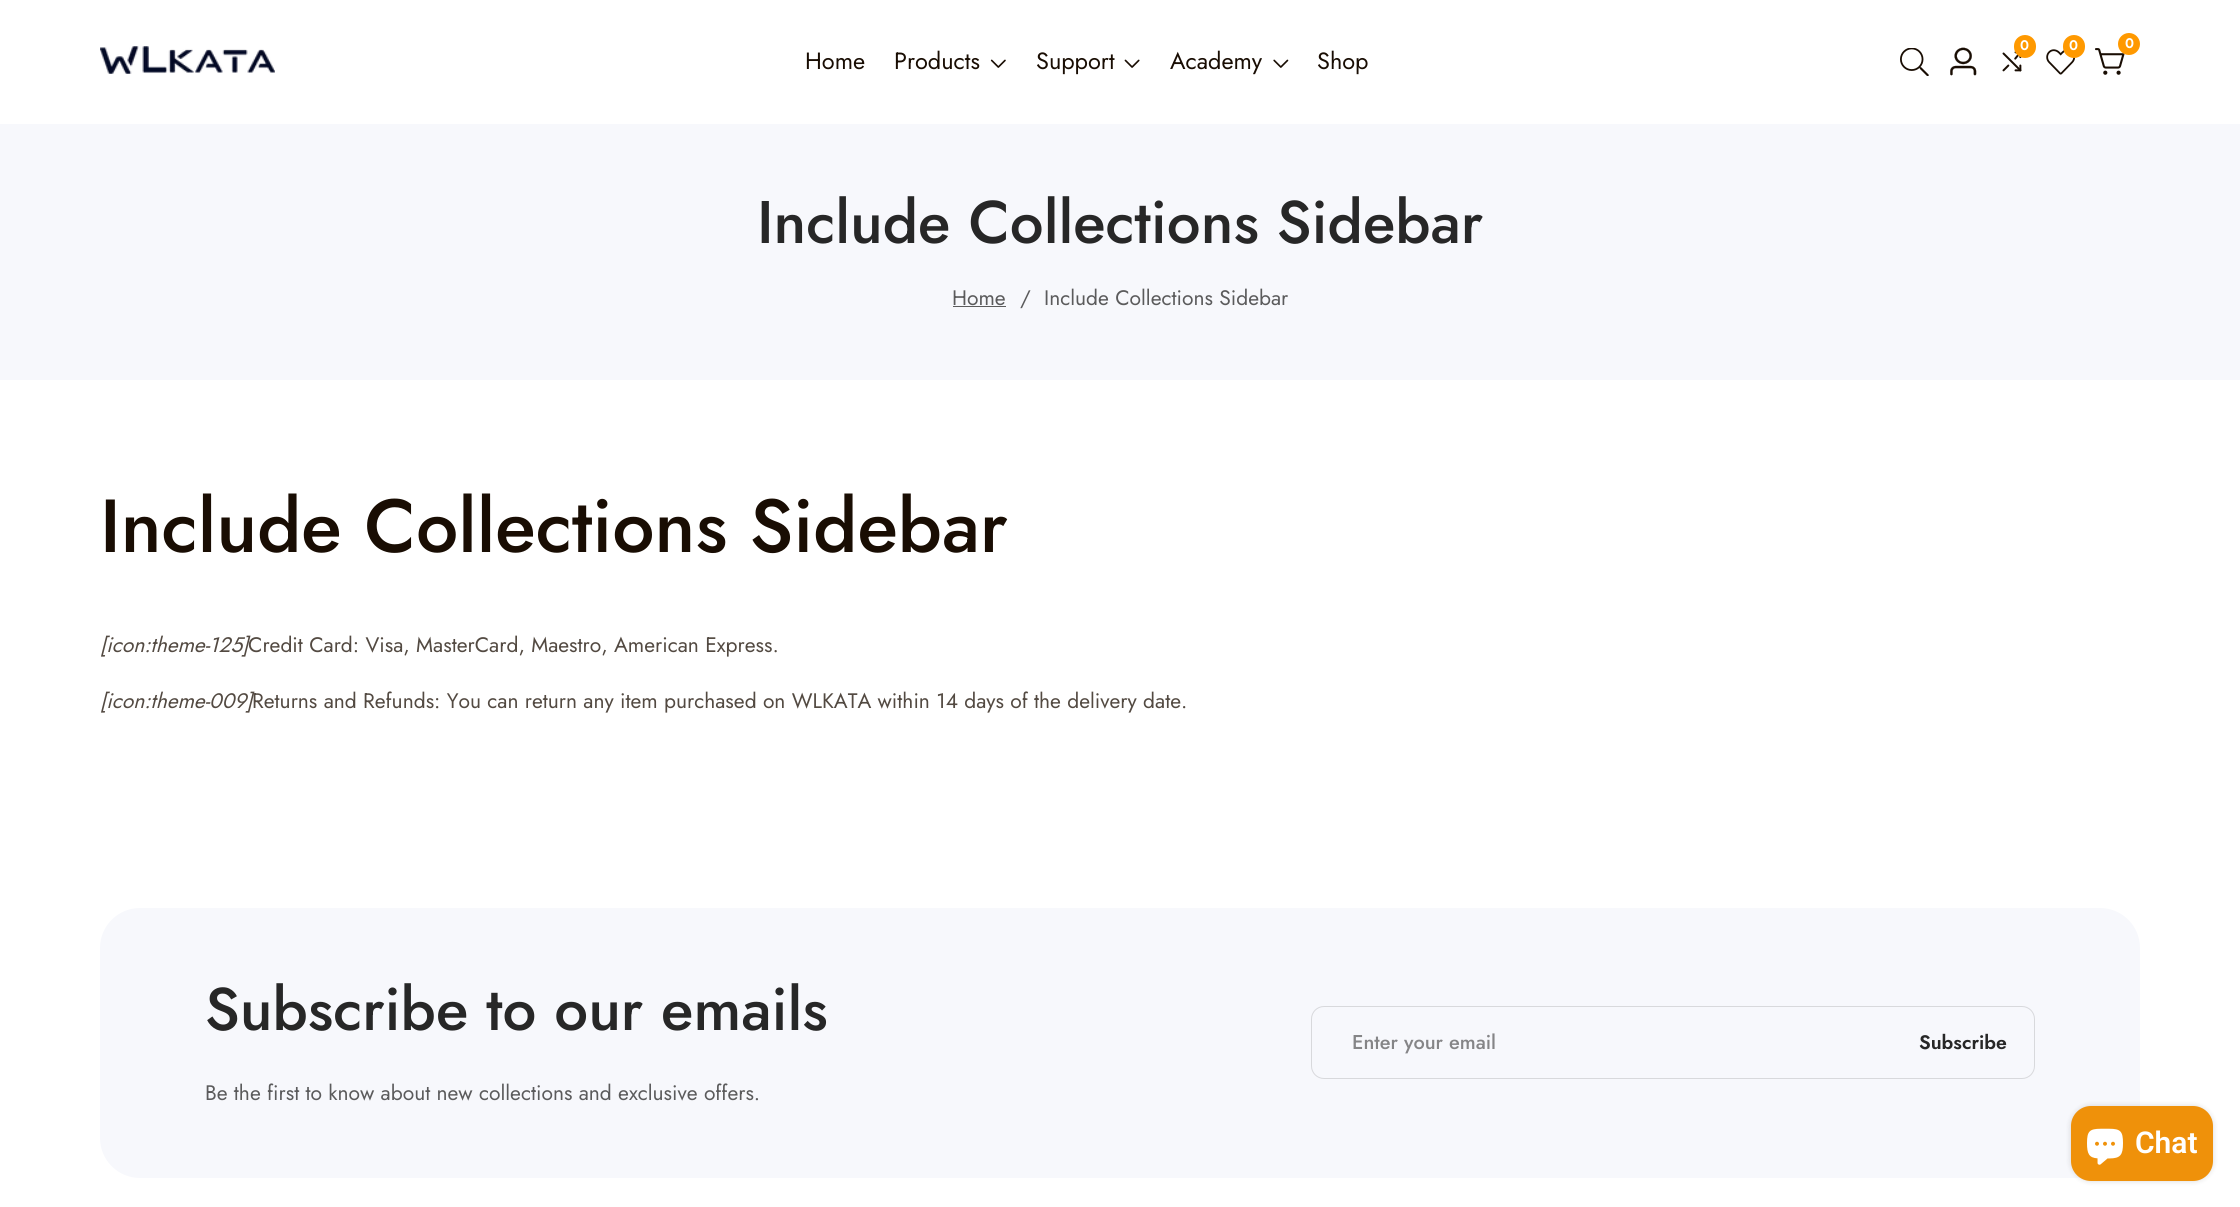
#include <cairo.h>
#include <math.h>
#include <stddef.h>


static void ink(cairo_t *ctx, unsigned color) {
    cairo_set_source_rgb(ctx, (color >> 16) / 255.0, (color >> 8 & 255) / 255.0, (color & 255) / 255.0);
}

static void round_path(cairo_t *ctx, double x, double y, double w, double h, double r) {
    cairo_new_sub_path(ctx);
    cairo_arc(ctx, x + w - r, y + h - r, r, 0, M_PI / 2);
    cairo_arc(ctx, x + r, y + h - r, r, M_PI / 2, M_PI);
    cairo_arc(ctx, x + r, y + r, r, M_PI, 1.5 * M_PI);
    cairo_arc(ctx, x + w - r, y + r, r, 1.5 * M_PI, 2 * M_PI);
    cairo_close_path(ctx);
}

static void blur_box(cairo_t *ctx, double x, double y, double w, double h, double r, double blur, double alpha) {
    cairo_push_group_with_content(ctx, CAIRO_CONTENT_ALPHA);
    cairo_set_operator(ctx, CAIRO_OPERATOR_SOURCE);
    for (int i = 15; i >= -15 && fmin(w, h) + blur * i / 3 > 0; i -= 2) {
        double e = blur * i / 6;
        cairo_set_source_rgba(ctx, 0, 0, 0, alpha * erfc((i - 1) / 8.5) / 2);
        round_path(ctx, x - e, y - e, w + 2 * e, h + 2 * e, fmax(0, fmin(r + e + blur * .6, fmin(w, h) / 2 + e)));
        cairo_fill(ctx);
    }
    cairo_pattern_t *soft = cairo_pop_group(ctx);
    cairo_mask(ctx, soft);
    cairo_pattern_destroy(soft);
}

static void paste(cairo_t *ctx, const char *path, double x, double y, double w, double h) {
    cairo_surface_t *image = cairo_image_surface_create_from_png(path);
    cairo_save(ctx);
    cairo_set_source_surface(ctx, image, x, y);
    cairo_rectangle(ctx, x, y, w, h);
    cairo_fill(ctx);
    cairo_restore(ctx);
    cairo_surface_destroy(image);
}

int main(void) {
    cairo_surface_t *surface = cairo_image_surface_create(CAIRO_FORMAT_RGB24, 2240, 1207);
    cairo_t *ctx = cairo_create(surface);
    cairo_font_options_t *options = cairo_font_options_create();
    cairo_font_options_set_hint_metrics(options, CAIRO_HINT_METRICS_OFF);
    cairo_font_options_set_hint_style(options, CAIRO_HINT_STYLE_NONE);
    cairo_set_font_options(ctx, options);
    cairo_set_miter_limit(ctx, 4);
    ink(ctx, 0xFFFFFF);
    cairo_paint(ctx);
    paste(ctx, "media/1.png", 2002, 51, 20, 21);
    ink(ctx, 0xFF9900);
    round_path(ctx, 2014, 35, 22, 23, 11);
    cairo_fill(ctx);
    cairo_select_font_face(ctx, "Jost SemiBold", CAIRO_FONT_SLANT_NORMAL, CAIRO_FONT_WEIGHT_NORMAL);
    cairo_set_font_size(ctx, 14);
    ink(ctx, 0xFFFFFF);
    cairo_move_to(ctx, 2020, 50);
    cairo_show_text(ctx, "0");
    paste(ctx, "media/2.png", 2046, 49, 29, 26);
    ink(ctx, 0xFF9900);
    round_path(ctx, 2063, 35, 22, 23, 11);
    cairo_fill(ctx);
    ink(ctx, 0xFFFFFF);
    cairo_move_to(ctx, 2069, 50);
    cairo_show_text(ctx, "0");
    paste(ctx, "media/3.png", 2095, 48, 30, 27);
    ink(ctx, 0xFF9900);
    cairo_arc(ctx, 2129, 44, 11, 0, 2 * M_PI);
    cairo_fill(ctx);
    ink(ctx, 0xFFFFFF);
    cairo_move_to(ctx, 2125, 48);
    cairo_show_text(ctx, "0");
    paste(ctx, "media/4.png", 1900, 48, 29, 28);
    paste(ctx, "media/5.png", 1950, 47, 27, 29);
    paste(ctx, "media/6.png", 100, 46, 175, 28);
    cairo_select_font_face(ctx, "Jost", CAIRO_FONT_SLANT_NORMAL, CAIRO_FONT_WEIGHT_NORMAL);
    cairo_set_font_size(ctx, 23.5);
    ink(ctx, 0x190D03);
    cairo_move_to(ctx, 805, 69);
    cairo_show_text(ctx, "Home");
    cairo_move_to(ctx, 894, 69);
    cairo_show_text(ctx, "Products");
    paste(ctx, "media/7.png", 990, 59, 16, 9);
    cairo_move_to(ctx, 1036, 69);
    cairo_show_text(ctx, "Support");
    paste(ctx, "media/8.png", 1124, 59, 16, 9);
    cairo_move_to(ctx, 1170, 69);
    cairo_show_text(ctx, "Academy");
    paste(ctx, "media/9.png", 1273, 59, 16, 9);
    cairo_move_to(ctx, 1317, 69);
    cairo_show_text(ctx, "Shop");
    ink(ctx, 0xF7F8FC);
    cairo_rectangle(ctx, 0, 124, 2240, 256);
    cairo_fill(ctx);
    cairo_select_font_face(ctx, "Jost Medium", CAIRO_FONT_SLANT_NORMAL, CAIRO_FONT_WEIGHT_NORMAL);
    cairo_set_font_size(ctx, 60);
    ink(ctx, 0x272727);
    cairo_move_to(ctx, 757, 243);
    cairo_show_text(ctx, "Include Collections Sidebar");
    cairo_select_font_face(ctx, "Jost", CAIRO_FONT_SLANT_NORMAL, CAIRO_FONT_WEIGHT_NORMAL);
    cairo_set_font_size(ctx, 21);
    ink(ctx, 0x5B5B5C);
    cairo_move_to(ctx, 952, 305);
    cairo_show_text(ctx, "Home");
    cairo_rectangle(ctx, 953, 306, 53, 1);
    cairo_fill(ctx);
    cairo_move_to(ctx, 1020, 305);
    cairo_show_text(ctx, "/");
    cairo_move_to(ctx, 1044, 305);
    cairo_show_text(ctx, "Include Collections Sidebar");
    cairo_select_font_face(ctx, "Jost Medium", CAIRO_FONT_SLANT_NORMAL, CAIRO_FONT_WEIGHT_NORMAL);
    cairo_set_font_size(ctx, 75);
    ink(ctx, 0x190D03);
    cairo_move_to(ctx, 100, 552);
    cairo_show_text(ctx, "Include Collections Sidebar");
    cairo_select_font_face(ctx, "Jost", CAIRO_FONT_SLANT_ITALIC, CAIRO_FONT_WEIGHT_NORMAL);
    cairo_set_font_size(ctx, 21);
    ink(ctx, 0x534A42);
    cairo_move_to(ctx, 100, 652);
    cairo_show_text(ctx, "[icon:theme-125]");
    cairo_select_font_face(ctx, "Jost", CAIRO_FONT_SLANT_NORMAL, CAIRO_FONT_WEIGHT_NORMAL);
    cairo_move_to(ctx, 248, 652);
    cairo_show_text(ctx, "Credit Card: Visa, MasterCard, Maestro, American Express.");
    cairo_select_font_face(ctx, "Jost", CAIRO_FONT_SLANT_ITALIC, CAIRO_FONT_WEIGHT_NORMAL);
    cairo_move_to(ctx, 100, 708);
    cairo_show_text(ctx, "[icon:theme-009]");
    cairo_select_font_face(ctx, "Jost", CAIRO_FONT_SLANT_NORMAL, CAIRO_FONT_WEIGHT_NORMAL);
    cairo_move_to(ctx, 252, 708);
    cairo_show_text(ctx, "Returns and Refunds: You can return any item purchased on WLKATA within 14 days of the delivery date.");
    ink(ctx, 0xF7F8FC);
    round_path(ctx, 100, 908, 2040, 270, 40);
    cairo_fill(ctx);
    cairo_select_font_face(ctx, "Jost Medium", CAIRO_FONT_SLANT_NORMAL, CAIRO_FONT_WEIGHT_NORMAL);
    cairo_set_font_size(ctx, 60);
    ink(ctx, 0x272727);
    cairo_move_to(ctx, 205, 1030);
    cairo_show_text(ctx, "Subscribe to our emails");
    cairo_select_font_face(ctx, "Jost", CAIRO_FONT_SLANT_NORMAL, CAIRO_FONT_WEIGHT_NORMAL);
    cairo_set_font_size(ctx, 21);
    ink(ctx, 0x5B5B5C);
    cairo_move_to(ctx, 205, 1100);
    cairo_show_text(ctx, "Be the first to know about new collections and exclusive offers.");
    round_path(ctx, 1311.5, 1006.5, 723, 72, 12.5);
    ink(ctx, 0xD8D9DC);
    cairo_set_line_width(ctx, 1);
    cairo_stroke(ctx);
    cairo_select_font_face(ctx, "Jost Medium", CAIRO_FONT_SLANT_NORMAL, CAIRO_FONT_WEIGHT_NORMAL);
    cairo_set_font_size(ctx, 20);
    ink(ctx, 0x858587);
    cairo_move_to(ctx, 1352, 1049);
    cairo_show_text(ctx, "Enter your email");
    cairo_select_font_face(ctx, "Jost SemiBold", CAIRO_FONT_SLANT_NORMAL, CAIRO_FONT_WEIGHT_NORMAL);
    cairo_set_font_size(ctx, 19.5);
    ink(ctx, 0x272727);
    cairo_move_to(ctx, 1919, 1049);
    cairo_show_text(ctx, "Subscribe");
    ink(ctx, 0x000000);
    blur_box(ctx, 2071, 1106, 142, 75, 20, 3, 0.15);
    ink(ctx, 0xEF910A);
    round_path(ctx, 2071, 1106, 142, 75, 20);
    cairo_fill(ctx);
    paste(ctx, "media/10.png", 2087, 1128, 36, 37);
    cairo_select_font_face(ctx, "Roboto SemiBold", CAIRO_FONT_SLANT_NORMAL, CAIRO_FONT_WEIGHT_NORMAL);
    cairo_set_font_size(ctx, 30);
    ink(ctx, 0xFFFFFF);
    cairo_move_to(ctx, 2135, 1153);
    cairo_show_text(ctx, "Chat");
    cairo_surface_write_to_png(surface, "image.png");
    cairo_font_options_destroy(options);
    cairo_destroy(ctx);
    cairo_surface_destroy(surface);
    return 0;
}
